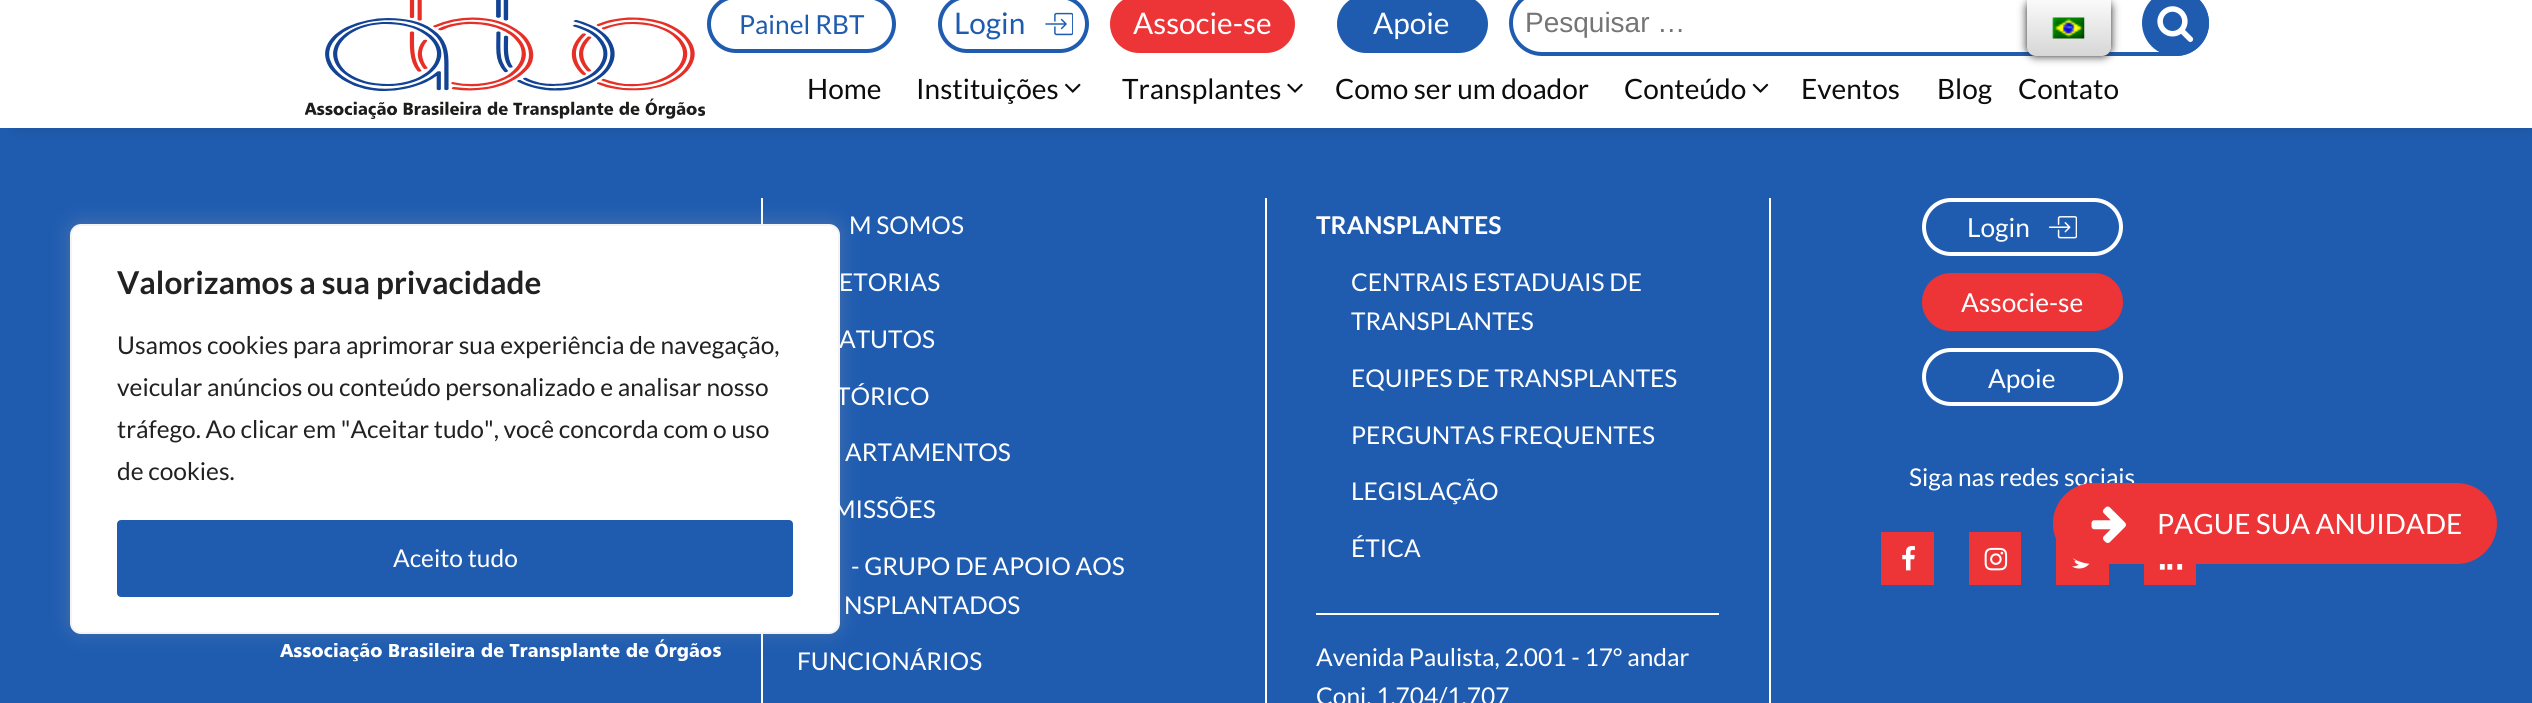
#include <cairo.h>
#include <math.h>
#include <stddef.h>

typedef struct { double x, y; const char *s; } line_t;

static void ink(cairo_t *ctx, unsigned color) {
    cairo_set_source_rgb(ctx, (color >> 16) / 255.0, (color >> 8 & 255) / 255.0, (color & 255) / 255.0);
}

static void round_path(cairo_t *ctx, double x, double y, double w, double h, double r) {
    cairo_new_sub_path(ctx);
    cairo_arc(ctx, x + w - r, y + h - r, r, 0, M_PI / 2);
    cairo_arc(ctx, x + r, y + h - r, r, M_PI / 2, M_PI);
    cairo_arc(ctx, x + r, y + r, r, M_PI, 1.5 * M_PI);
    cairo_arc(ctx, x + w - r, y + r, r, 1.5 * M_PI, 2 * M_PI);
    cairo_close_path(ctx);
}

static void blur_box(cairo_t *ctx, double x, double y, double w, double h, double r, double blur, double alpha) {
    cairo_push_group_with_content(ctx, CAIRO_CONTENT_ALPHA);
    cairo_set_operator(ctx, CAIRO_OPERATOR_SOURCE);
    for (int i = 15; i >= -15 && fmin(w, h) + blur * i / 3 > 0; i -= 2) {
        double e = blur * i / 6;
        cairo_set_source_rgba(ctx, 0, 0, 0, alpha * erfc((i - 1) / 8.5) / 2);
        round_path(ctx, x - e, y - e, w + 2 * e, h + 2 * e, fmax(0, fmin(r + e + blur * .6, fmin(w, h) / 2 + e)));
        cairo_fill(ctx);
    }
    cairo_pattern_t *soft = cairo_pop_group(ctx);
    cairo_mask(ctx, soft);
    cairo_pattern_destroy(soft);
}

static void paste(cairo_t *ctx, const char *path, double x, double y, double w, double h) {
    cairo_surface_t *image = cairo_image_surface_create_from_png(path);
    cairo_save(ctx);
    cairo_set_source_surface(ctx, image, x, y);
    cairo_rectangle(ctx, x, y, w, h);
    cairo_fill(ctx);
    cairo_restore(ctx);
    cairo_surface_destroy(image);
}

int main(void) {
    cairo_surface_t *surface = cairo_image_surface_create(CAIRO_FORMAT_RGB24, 2532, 703);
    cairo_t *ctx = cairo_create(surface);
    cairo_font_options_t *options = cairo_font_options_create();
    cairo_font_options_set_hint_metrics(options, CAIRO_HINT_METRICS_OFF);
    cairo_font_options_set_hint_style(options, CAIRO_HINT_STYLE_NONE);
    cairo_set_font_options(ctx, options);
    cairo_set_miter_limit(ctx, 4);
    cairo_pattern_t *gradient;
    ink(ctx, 0x1F5CB0);
    cairo_paint(ctx);
    ink(ctx, 0x000000);
    blur_box(ctx, 16, -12, 2511, 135, 0, 10.5, 0.22);
    ink(ctx, 0xFFFFFF);
    cairo_rectangle(ctx, 0, 0, 2532, 128);
    cairo_fill(ctx);
    round_path(ctx, 1511, -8, 696, 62, 31);
    ink(ctx, 0x1F5CB0);
    cairo_set_line_width(ctx, 4);
    cairo_stroke(ctx);
    ink(ctx, 0x212121);
    blur_box(ctx, 2027, 0, 84, 56, 9, 4.5, 1);
    gradient = cairo_pattern_create_linear(2069, 56, 2069, 0);
    cairo_pattern_add_color_stop_rgba(gradient, 0, 0.839, 0.839, 0.839, 1);
    cairo_pattern_add_color_stop_rgba(gradient, 1, 0.98, 0.98, 0.98, 1);
    cairo_set_source(ctx, gradient);
    cairo_pattern_destroy(gradient);
    cairo_new_path(ctx);
    cairo_move_to(ctx, 2027, 0);
    cairo_line_to(ctx, 2111, 0);
    cairo_line_to(ctx, 2111, 47);
    cairo_curve_to(ctx, 2111, 52, 2107, 56, 2102, 56);
    cairo_line_to(ctx, 2036, 56);
    cairo_curve_to(ctx, 2031, 56, 2027, 52, 2027, 47);
    cairo_close_path(ctx);
    cairo_fill(ctx);
    paste(ctx, "media/1.png", 2052, 17, 33, 22);
    paste(ctx, "media/2.png", 305, 0, 400, 119);
    round_path(ctx, 709, -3, 185, 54, 27);
    ink(ctx, 0x1F5CB0);
    cairo_stroke(ctx);
    cairo_select_font_face(ctx, "Lato", CAIRO_FONT_SLANT_NORMAL, CAIRO_FONT_WEIGHT_NORMAL);
    cairo_set_font_size(ctx, 26.25);
    cairo_move_to(ctx, 739, 34);
    cairo_show_text(ctx, "Painel RBT");
    round_path(ctx, 940, -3, 147, 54, 27);
    cairo_stroke(ctx);
    cairo_set_font_size(ctx, 29.75);
    cairo_move_to(ctx, 954, 34);
    cairo_show_text(ctx, "Login");
    paste(ctx, "media/3.png", 1045, 12, 28, 24);
    ink(ctx, 0xED3437);
    round_path(ctx, 1110, -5, 185, 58, 29);
    cairo_fill(ctx);
    ink(ctx, 0xFFFFFF);
    cairo_move_to(ctx, 1133, 34);
    cairo_show_text(ctx, "Associe-se");
    ink(ctx, 0x1F5CB0);
    round_path(ctx, 1339, -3, 147, 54, 27);
    cairo_fill_preserve(ctx);
    cairo_stroke(ctx);
    ink(ctx, 0xFFFFFF);
    cairo_move_to(ctx, 1373, 34);
    cairo_show_text(ctx, "Apoie");
    cairo_select_font_face(ctx, "Liberation Sans", CAIRO_FONT_SLANT_NORMAL, CAIRO_FONT_WEIGHT_NORMAL);
    cairo_set_font_size(ctx, 28);
    ink(ctx, 0x757575);
    cairo_move_to(ctx, 1525, 32);
    cairo_show_text(ctx, "Pesquisar …");
    ink(ctx, 0x1F5CB0);
    round_path(ctx, 2143, -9, 65, 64, 32);
    cairo_fill_preserve(ctx);
    cairo_set_line_width(ctx, 2);
    cairo_stroke(ctx);
    paste(ctx, "media/4.png", 2157, 6, 37, 36);
    cairo_select_font_face(ctx, "Lato", CAIRO_FONT_SLANT_NORMAL, CAIRO_FONT_WEIGHT_NORMAL);
    ink(ctx, 0x0C0C0C);
    cairo_move_to(ctx, 807, 99);
    cairo_show_text(ctx, "Home");
    cairo_move_to(ctx, 916, 99);
    cairo_show_text(ctx, "Instituições");
    paste(ctx, "media/5.png", 1065, 83, 16, 10);
    cairo_move_to(ctx, 1122, 99);
    cairo_show_text(ctx, "Transplantes");
    paste(ctx, "media/6.png", 1287, 83, 16, 10);
    cairo_move_to(ctx, 1335, 99);
    cairo_show_text(ctx, "Como ser um doador");
    cairo_move_to(ctx, 1624, 99);
    cairo_show_text(ctx, "Conteúdo");
    paste(ctx, "media/7.png", 1752, 83, 17, 10);
    {
        static const line_t items[] = {
            {1801, 99, "Eventos"},
            {1937, 99, "Blog"},
            {2018, 99, "Contato"},
        };
        for (size_t i = 0; i < sizeof items / sizeof *items; i++) {
            cairo_move_to(ctx, items[i].x, items[i].y);
            cairo_show_text(ctx, items[i].s);
        }
    }
    ink(ctx, 0xFFFFFF);
    cairo_rectangle(ctx, 761, 198, 2, 505);
    cairo_fill(ctx);
    paste(ctx, "media/8.png", 280, 639, 441, 23);
    ink(ctx, 0xACABAB);
    blur_box(ctx, 70, 222, 770, 410, 11, 9, 0.3);
    ink(ctx, 0xFFFFFF);
    round_path(ctx, 71, 225, 768, 408, 10);
    cairo_fill_preserve(ctx);
    ink(ctx, 0xF4F4F4);
    cairo_stroke(ctx);
    cairo_select_font_face(ctx, "Lato", CAIRO_FONT_SLANT_NORMAL, CAIRO_FONT_WEIGHT_BOLD);
    cairo_set_font_size(ctx, 31.5);
    ink(ctx, 0x212121);
    cairo_move_to(ctx, 117, 294);
    cairo_show_text(ctx, "Valorizamos a sua privacidade");
    cairo_select_font_face(ctx, "Lato", CAIRO_FONT_SLANT_NORMAL, CAIRO_FONT_WEIGHT_NORMAL);
    cairo_set_font_size(ctx, 24.5);
    {
        static const line_t items[] = {
            {117, 354, "Usamos cookies para aprimorar sua experiência de navegação,"},
            {117, 396, "veicular anúncios ou conteúdo personalizado e analisar nosso"},
            {117, 438, "tráfego. Ao clicar em \"Aceitar tudo\", você concorda com o uso"},
            {117, 480, "de cookies."},
        };
        for (size_t i = 0; i < sizeof items / sizeof *items; i++) {
            cairo_move_to(ctx, items[i].x, items[i].y);
            cairo_show_text(ctx, items[i].s);
        }
    }
    ink(ctx, 0x1F5CB0);
    round_path(ctx, 119, 522, 672, 73, 2);
    cairo_fill_preserve(ctx);
    cairo_set_line_width(ctx, 4);
    cairo_stroke(ctx);
    ink(ctx, 0xFFFFFF);
    cairo_move_to(ctx, 393, 567);
    cairo_show_text(ctx, "Aceito tudo");
    cairo_rectangle(ctx, 1265, 198, 2, 505);
    cairo_fill(ctx);
    {
        static const line_t items[] = {
            {849, 234, "M SOMOS"},
            {839, 291, "ETORIAS"},
            {839, 348, "ATUTOS"},
            {836, 405, "TÓRICO"},
            {845, 461, "ARTAMENTOS"},
            {833, 518, "MISSÕES"},
            {851, 575, "- GRUPO DE APOIO AOS"},
            {844, 614, "NSPLANTADOS"},
            {797, 670, "FUNCIONÁRIOS"},
        };
        for (size_t i = 0; i < sizeof items / sizeof *items; i++) {
            cairo_move_to(ctx, items[i].x, items[i].y);
            cairo_show_text(ctx, items[i].s);
        }
    }
    cairo_rectangle(ctx, 1769, 198, 2, 505);
    cairo_fill(ctx);
    cairo_rectangle(ctx, 1316, 613, 403, 2);
    cairo_fill(ctx);
    cairo_select_font_face(ctx, "Lato", CAIRO_FONT_SLANT_NORMAL, CAIRO_FONT_WEIGHT_BOLD);
    cairo_move_to(ctx, 1316, 234);
    cairo_show_text(ctx, "TRANSPLANTES");
    cairo_select_font_face(ctx, "Lato", CAIRO_FONT_SLANT_NORMAL, CAIRO_FONT_WEIGHT_NORMAL);
    {
        static const line_t items[] = {
            {1351, 291, "CENTRAIS ESTADUAIS DE"},
            {1351, 330, "TRANSPLANTES"},
            {1351, 387, "EQUIPES DE TRANSPLANTES"},
            {1351, 444, "PERGUNTAS FREQUENTES"},
            {1351, 500, "LEGISLAÇÃO"},
            {1351, 557, "ÉTICA"},
            {1316, 666, "Avenida Paulista, 2.001 - 17° andar"},
            {1316, 705, "Conj. 1.704/1.707"},
        };
        for (size_t i = 0; i < sizeof items / sizeof *items; i++) {
            cairo_move_to(ctx, items[i].x, items[i].y);
            cairo_show_text(ctx, items[i].s);
        }
    }
    round_path(ctx, 1924, 200, 197, 54, 27);
    cairo_stroke(ctx);
    cairo_set_font_size(ctx, 26.25);
    cairo_move_to(ctx, 1967, 237);
    cairo_show_text(ctx, "Login");
    paste(ctx, "media/9.png", 2048, 216, 29, 23);
    ink(ctx, 0xED3437);
    round_path(ctx, 1922, 273, 201, 58, 29);
    cairo_fill(ctx);
    ink(ctx, 0xFFFFFF);
    cairo_move_to(ctx, 1961, 312);
    cairo_show_text(ctx, "Associe-se");
    round_path(ctx, 1924, 350, 197, 54, 27);
    cairo_stroke(ctx);
    cairo_move_to(ctx, 1988, 388);
    cairo_show_text(ctx, "Apoie");
    cairo_set_font_size(ctx, 24.5);
    cairo_move_to(ctx, 1909, 486);
    cairo_show_text(ctx, "Siga nas redes sociais");
    ink(ctx, 0xED3437);
    cairo_rectangle(ctx, 1881, 532, 53, 53);
    cairo_fill(ctx);
    paste(ctx, "media/10.png", 1902, 546, 13, 25);
    cairo_rectangle(ctx, 1969, 532, 52, 53);
    cairo_fill(ctx);
    paste(ctx, "media/11.png", 1984, 547, 24, 24);
    cairo_rectangle(ctx, 2056, 538, 53, 47);
    cairo_fill(ctx);
    paste(ctx, "media/12.png", 2072, 557, 18, 12);
    cairo_rectangle(ctx, 2144, 564, 52, 21);
    cairo_fill(ctx);
    paste(ctx, "media/13.png", 2159, 564, 24, 6);
    round_path(ctx, 2053, 483, 444, 81, 40.5);
    cairo_fill(ctx);
    paste(ctx, "media/14.png", 2091, 506, 35, 37);
    cairo_set_font_size(ctx, 28);
    ink(ctx, 0xFFFFFF);
    cairo_move_to(ctx, 2157, 534);
    cairo_show_text(ctx, "PAGUE SUA ANUIDADE");
    cairo_surface_write_to_png(surface, "image.png");
    cairo_font_options_destroy(options);
    cairo_destroy(ctx);
    cairo_surface_destroy(surface);
    return 0;
}
